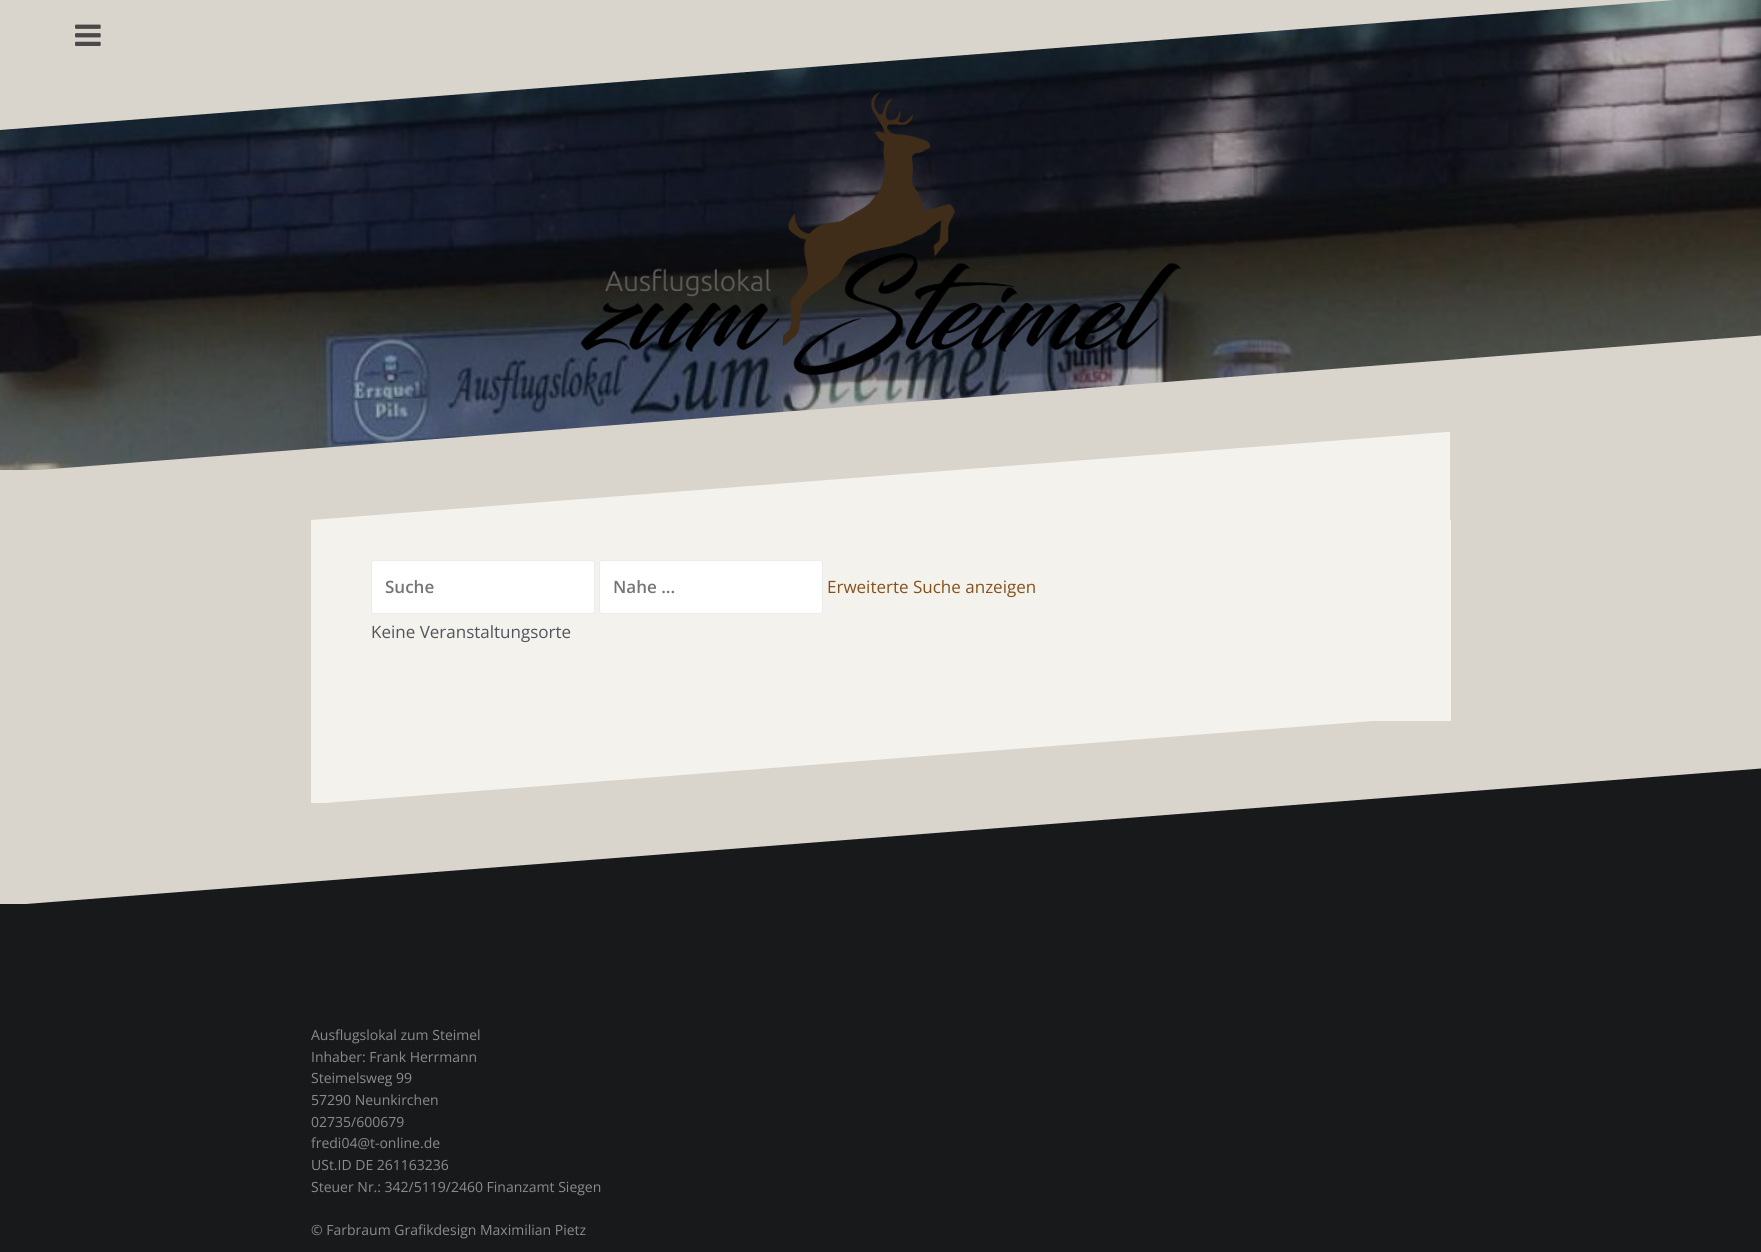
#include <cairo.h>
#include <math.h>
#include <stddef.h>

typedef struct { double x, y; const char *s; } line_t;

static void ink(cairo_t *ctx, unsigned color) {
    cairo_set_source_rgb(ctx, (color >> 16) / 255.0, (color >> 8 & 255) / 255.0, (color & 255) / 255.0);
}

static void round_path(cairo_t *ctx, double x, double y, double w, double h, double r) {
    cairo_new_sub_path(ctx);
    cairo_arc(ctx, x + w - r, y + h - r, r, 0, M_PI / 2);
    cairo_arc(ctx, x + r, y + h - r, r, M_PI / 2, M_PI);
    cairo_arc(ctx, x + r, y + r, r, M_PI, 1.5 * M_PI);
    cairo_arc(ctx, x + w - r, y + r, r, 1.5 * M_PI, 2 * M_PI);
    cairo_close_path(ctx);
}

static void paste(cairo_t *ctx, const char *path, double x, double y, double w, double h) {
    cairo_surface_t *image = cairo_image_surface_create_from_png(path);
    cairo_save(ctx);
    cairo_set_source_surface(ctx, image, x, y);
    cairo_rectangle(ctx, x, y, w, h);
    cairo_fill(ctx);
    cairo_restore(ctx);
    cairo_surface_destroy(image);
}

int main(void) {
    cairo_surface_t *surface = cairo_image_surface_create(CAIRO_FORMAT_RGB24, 1761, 1252);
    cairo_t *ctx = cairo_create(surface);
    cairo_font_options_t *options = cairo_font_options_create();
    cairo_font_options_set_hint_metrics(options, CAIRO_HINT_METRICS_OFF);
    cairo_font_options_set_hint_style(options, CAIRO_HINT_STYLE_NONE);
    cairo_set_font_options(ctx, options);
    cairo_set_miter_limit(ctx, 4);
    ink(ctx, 0xDAD5CC);
    cairo_paint(ctx);
    paste(ctx, "media/1.png", 0, 0, 1761, 470);
    paste(ctx, "media/2.png", 581, 92, 600, 283);
    cairo_save(ctx);
    cairo_rectangle(ctx, 0, 333, 1761, 139);
    cairo_clip(ctx);
    ink(ctx, 0xDAD5CC);
    cairo_new_path(ctx);
    cairo_move_to(ctx, 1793, 333);
    cairo_line_to(ctx, 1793, 473);
    cairo_line_to(ctx, 0, 473);
    cairo_fill(ctx);
    cairo_restore(ctx);
    ink(ctx, 0xDAD5CC);
    cairo_new_path(ctx);
    cairo_move_to(ctx, 0, 130);
    cairo_line_to(ctx, 0, -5);
    cairo_line_to(ctx, 1738, -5);
    cairo_fill(ctx);
    paste(ctx, "media/3.png", 75, 24, 26, 22);
    cairo_save(ctx);
    cairo_rectangle(ctx, 311, 430, 1139, 91);
    cairo_clip(ctx);
    ink(ctx, 0xF4F2ED);
    cairo_new_path(ctx);
    cairo_move_to(ctx, 1472, 430);
    cairo_line_to(ctx, 1472, 520);
    cairo_line_to(ctx, 311, 520);
    cairo_fill(ctx);
    cairo_restore(ctx);
    ink(ctx, 0xF4F2ED);
    cairo_rectangle(ctx, 311, 520, 1140, 201);
    cairo_fill(ctx);
    ink(ctx, 0xFFFFFF);
    round_path(ctx, 371.5, 560.5, 223, 53, 2.5);
    cairo_fill_preserve(ctx);
    ink(ctx, 0xEBEBEB);
    cairo_set_line_width(ctx, 1);
    cairo_stroke(ctx);
    cairo_select_font_face(ctx, "Open Sans SemiBold", CAIRO_FONT_SLANT_NORMAL, CAIRO_FONT_WEIGHT_NORMAL);
    cairo_set_font_size(ctx, 17);
    ink(ctx, 0x757575);
    cairo_move_to(ctx, 385, 593);
    cairo_show_text(ctx, "Suche");
    ink(ctx, 0xFFFFFF);
    round_path(ctx, 599.5, 560.5, 223, 53, 2.5);
    cairo_fill_preserve(ctx);
    ink(ctx, 0xEBEBEB);
    cairo_stroke(ctx);
    ink(ctx, 0x757575);
    cairo_move_to(ctx, 613, 593);
    cairo_show_text(ctx, "Nahe ...");
    cairo_select_font_face(ctx, "Open Sans", CAIRO_FONT_SLANT_NORMAL, CAIRO_FONT_WEIGHT_NORMAL);
    ink(ctx, 0x875019);
    cairo_move_to(ctx, 827, 593);
    cairo_show_text(ctx, "Erweiterte Suche anzeigen");
    ink(ctx, 0x50545C);
    cairo_move_to(ctx, 371, 638);
    cairo_show_text(ctx, "Keine Veranstaltungsorte");
    ink(ctx, 0x17191B);
    cairo_rectangle(ctx, 0, 904, 1761, 348);
    cairo_fill(ctx);
    cairo_new_path(ctx);
    cairo_move_to(ctx, 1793, 766);
    cairo_line_to(ctx, 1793, 906);
    cairo_line_to(ctx, 0, 906);
    cairo_fill(ctx);
    cairo_save(ctx);
    cairo_rectangle(ctx, 311, 716, 1139, 87);
    cairo_clip(ctx);
    ink(ctx, 0xF4F2ED);
    cairo_new_path(ctx);
    cairo_move_to(ctx, 311, 804);
    cairo_line_to(ctx, 311, 716);
    cairo_line_to(ctx, 1436, 716);
    cairo_fill(ctx);
    cairo_restore(ctx);
    cairo_set_font_size(ctx, 14);
    ink(ctx, 0x8B8B8B);
    {
        static const line_t items[] = {
            {311, 1040, "Ausflugslokal zum Steimel"},
            {311, 1062, "Inhaber: Frank Herrmann"},
            {311, 1083, "Steimelsweg 99"},
            {311, 1105, "57290 Neunkirchen"},
            {311, 1127, "02735/600679"},
            {311, 1148, "fredi04@t-online.de"},
            {311, 1170, "USt.ID DE 261163236"},
            {311, 1192, "Steuer Nr.: 342/5119/2460 Finanzamt Siegen"},
            {311, 1235, "© Farbraum Grafikdesign Maximilian Pietz"},
        };
        for (size_t i = 0; i < sizeof items / sizeof *items; i++) {
            cairo_move_to(ctx, items[i].x, items[i].y);
            cairo_show_text(ctx, items[i].s);
        }
    }
    cairo_surface_write_to_png(surface, "image.png");
    cairo_font_options_destroy(options);
    cairo_destroy(ctx);
    cairo_surface_destroy(surface);
    return 0;
}
